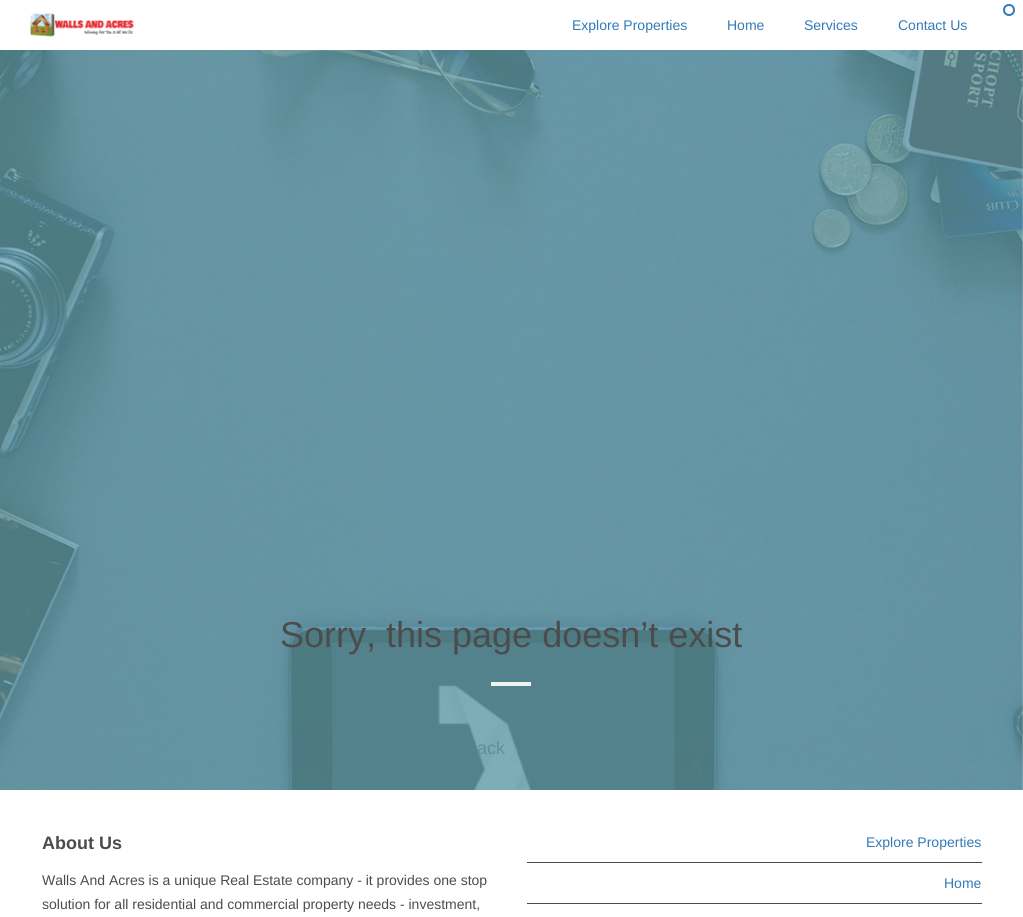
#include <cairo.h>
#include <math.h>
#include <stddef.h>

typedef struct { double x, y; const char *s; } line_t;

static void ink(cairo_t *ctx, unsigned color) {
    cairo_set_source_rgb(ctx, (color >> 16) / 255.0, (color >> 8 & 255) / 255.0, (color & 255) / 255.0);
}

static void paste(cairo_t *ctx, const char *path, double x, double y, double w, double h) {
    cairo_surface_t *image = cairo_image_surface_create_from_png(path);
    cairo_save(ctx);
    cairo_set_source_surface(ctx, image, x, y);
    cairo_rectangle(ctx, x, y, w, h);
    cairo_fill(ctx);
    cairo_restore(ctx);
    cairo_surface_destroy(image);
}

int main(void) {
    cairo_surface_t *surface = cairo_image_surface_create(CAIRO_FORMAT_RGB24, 1023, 917);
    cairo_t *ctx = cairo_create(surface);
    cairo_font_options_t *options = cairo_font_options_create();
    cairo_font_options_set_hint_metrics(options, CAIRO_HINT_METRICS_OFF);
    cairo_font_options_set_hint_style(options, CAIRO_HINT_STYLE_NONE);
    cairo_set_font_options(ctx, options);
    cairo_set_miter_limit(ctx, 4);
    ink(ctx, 0xFFFFFF);
    cairo_paint(ctx);
    paste(ctx, "media/1.png", 30, 13, 104, 24);
    cairo_arc(ctx, 1009, 10, 5, 0, 2 * M_PI);
    ink(ctx, 0x337AB7);
    cairo_stroke(ctx);
    cairo_select_font_face(ctx, "Liberation Sans", CAIRO_FONT_SLANT_NORMAL, CAIRO_FONT_WEIGHT_NORMAL);
    cairo_set_font_size(ctx, 14);
    {
        static const line_t items[] = {
            {572, 30, "Explore Properties"},
            {727, 30, "Home"},
            {804, 30, "Services"},
            {898, 30, "Contact Us"},
        };
        for (size_t i = 0; i < sizeof items / sizeof *items; i++) {
            cairo_move_to(ctx, items[i].x, items[i].y);
            cairo_show_text(ctx, items[i].s);
        }
    }
    paste(ctx, "media/2.png", 0, 50, 1023, 740);
    cairo_set_font_size(ctx, 36);
    ink(ctx, 0x4C4C4C);
    cairo_move_to(ctx, 280, 647);
    cairo_show_text(ctx, "Sorry, this page doesn’t exist");
    ink(ctx, 0xEEF3F4);
    cairo_rectangle(ctx, 491, 682, 40, 4);
    cairo_fill(ctx);
    cairo_set_font_size(ctx, 18);
    ink(ctx, 0x608F99);
    cairo_move_to(ctx, 477, 754);
    cairo_show_text(ctx, "ack");
    cairo_select_font_face(ctx, "Liberation Sans", CAIRO_FONT_SLANT_NORMAL, CAIRO_FONT_WEIGHT_BOLD);
    ink(ctx, 0x4C4C4C);
    cairo_move_to(ctx, 42, 849);
    cairo_show_text(ctx, "About Us");
    cairo_select_font_face(ctx, "Liberation Sans", CAIRO_FONT_SLANT_NORMAL, CAIRO_FONT_WEIGHT_NORMAL);
    cairo_set_font_size(ctx, 14);
    cairo_move_to(ctx, 42, 885);
    cairo_show_text(ctx, "Walls And Acres is a unique Real Estate company - it provides one stop");
    cairo_move_to(ctx, 42, 909);
    cairo_show_text(ctx, "solution for all residential and commercial property needs - investment,");
    cairo_rectangle(ctx, 527, 862, 455, 1);
    cairo_fill(ctx);
    ink(ctx, 0x337AB7);
    cairo_move_to(ctx, 866, 847);
    cairo_show_text(ctx, "Explore Properties");
    ink(ctx, 0x4C4C4C);
    cairo_rectangle(ctx, 527, 903, 455, 1);
    cairo_fill(ctx);
    ink(ctx, 0x337AB7);
    cairo_move_to(ctx, 944, 888);
    cairo_show_text(ctx, "Home");
    cairo_surface_write_to_png(surface, "image.png");
    cairo_font_options_destroy(options);
    cairo_destroy(ctx);
    cairo_surface_destroy(surface);
    return 0;
}
